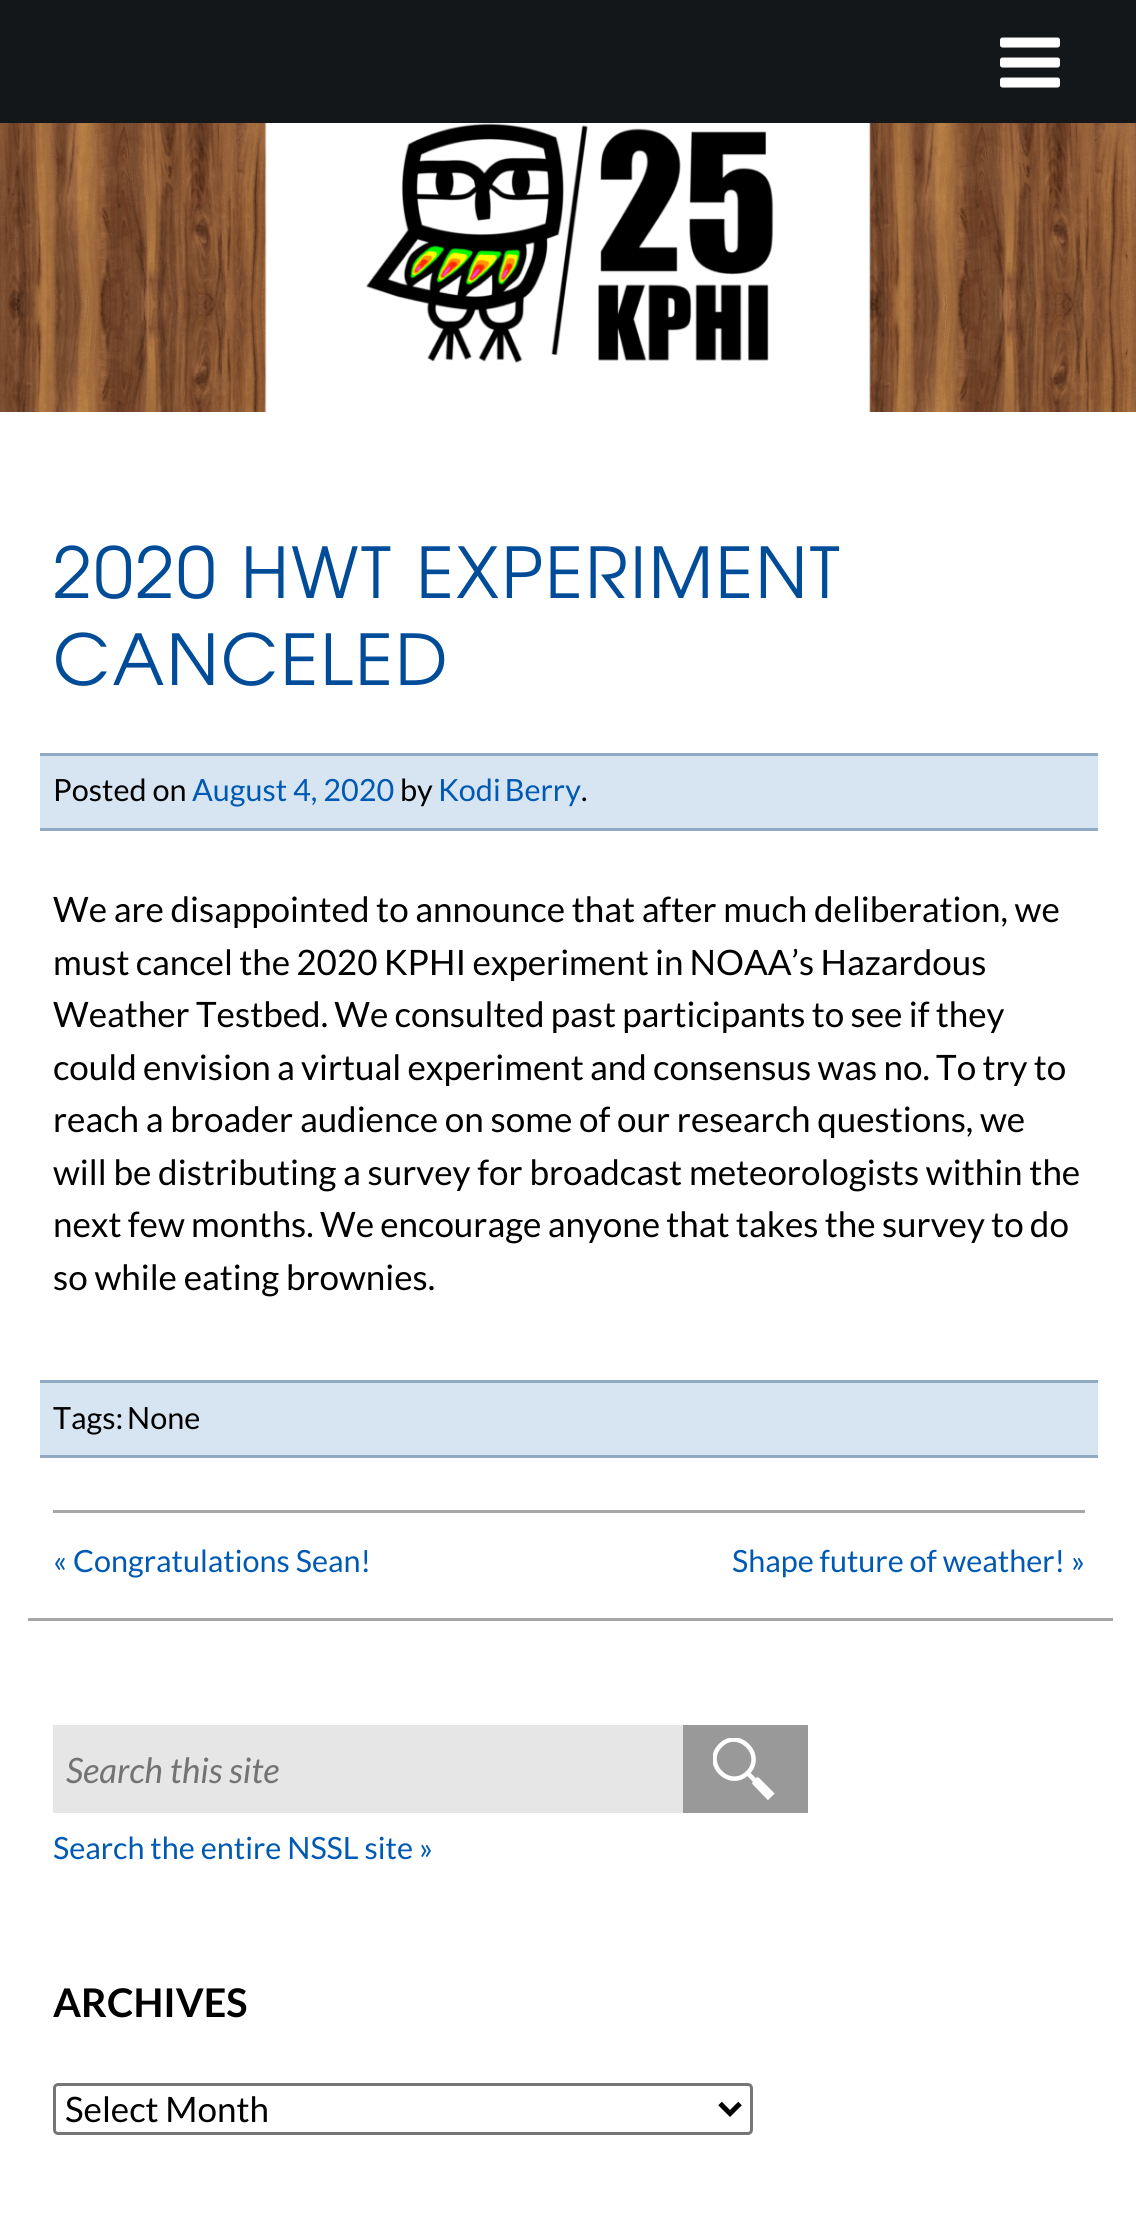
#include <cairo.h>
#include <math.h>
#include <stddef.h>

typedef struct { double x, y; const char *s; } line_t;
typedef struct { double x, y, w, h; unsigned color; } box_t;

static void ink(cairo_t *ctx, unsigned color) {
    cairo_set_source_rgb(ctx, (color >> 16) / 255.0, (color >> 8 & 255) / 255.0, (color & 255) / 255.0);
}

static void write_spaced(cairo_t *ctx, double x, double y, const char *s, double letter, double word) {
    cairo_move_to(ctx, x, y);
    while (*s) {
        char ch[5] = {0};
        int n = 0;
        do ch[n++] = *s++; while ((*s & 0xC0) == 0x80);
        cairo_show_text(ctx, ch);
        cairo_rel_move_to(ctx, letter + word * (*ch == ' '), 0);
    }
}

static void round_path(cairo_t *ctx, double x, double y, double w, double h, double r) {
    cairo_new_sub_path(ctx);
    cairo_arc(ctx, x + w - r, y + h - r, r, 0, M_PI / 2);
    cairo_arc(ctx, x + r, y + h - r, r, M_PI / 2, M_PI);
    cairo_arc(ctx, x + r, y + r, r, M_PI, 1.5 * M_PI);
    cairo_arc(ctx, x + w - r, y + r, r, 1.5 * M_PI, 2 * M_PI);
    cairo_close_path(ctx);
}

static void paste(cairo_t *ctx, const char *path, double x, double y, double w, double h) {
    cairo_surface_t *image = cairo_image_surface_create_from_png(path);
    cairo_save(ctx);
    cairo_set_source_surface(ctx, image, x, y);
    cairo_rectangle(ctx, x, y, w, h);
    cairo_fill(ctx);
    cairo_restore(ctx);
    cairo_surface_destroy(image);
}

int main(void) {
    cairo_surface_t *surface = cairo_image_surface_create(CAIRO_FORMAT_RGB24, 1136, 2238);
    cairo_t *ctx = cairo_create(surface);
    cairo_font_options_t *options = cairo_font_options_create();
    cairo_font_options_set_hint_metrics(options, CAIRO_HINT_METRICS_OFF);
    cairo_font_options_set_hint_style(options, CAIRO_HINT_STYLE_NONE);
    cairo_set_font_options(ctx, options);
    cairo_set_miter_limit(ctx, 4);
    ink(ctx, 0xFFFFFF);
    cairo_paint(ctx);
    ink(ctx, 0x141719);
    cairo_rectangle(ctx, 0, 0, 1136, 123);
    cairo_fill(ctx);
    paste(ctx, "media/1.png", 1000, 37, 60, 51);
    paste(ctx, "media/2.png", 0, 123, 1136, 289);
    ink(ctx, 0xA6A6A6);
    cairo_rectangle(ctx, 28, 1618, 1085, 3);
    cairo_fill(ctx);
    cairo_select_font_face(ctx, "TeX Gyre Adventor", CAIRO_FONT_SLANT_NORMAL, CAIRO_FONT_WEIGHT_NORMAL);
    cairo_set_font_size(ctx, 70);
    ink(ctx, 0x004C98);
    write_spaced(ctx, 53, 598, "2020 HWT EXPERIMENT", 2.5, 1);
    write_spaced(ctx, 53, 685, "CANCELED", 2.5, 0);
    {
        static const box_t items[] = {
            {40, 756, 1058, 72, 0xD7E5F3},
            {40, 753, 1058, 3, 0x91AAC4},
            {40, 828, 1058, 3, 0x91AAC4},
        };
        for (size_t i = 0; i < sizeof items / sizeof *items; i++) {
            ink(ctx, items[i].color);
            cairo_rectangle(ctx, items[i].x, items[i].y, items[i].w, items[i].h);
            cairo_fill(ctx);
        }
    }
    cairo_select_font_face(ctx, "Lato", CAIRO_FONT_SLANT_NORMAL, CAIRO_FONT_WEIGHT_NORMAL);
    cairo_set_font_size(ctx, 30.6);
    ink(ctx, 0x000000);
    cairo_move_to(ctx, 53, 801);
    cairo_show_text(ctx, "Posted on");
    ink(ctx, 0x0059B2);
    cairo_move_to(ctx, 192, 801);
    cairo_show_text(ctx, "August 4, 2020");
    ink(ctx, 0x000000);
    cairo_move_to(ctx, 400, 801);
    cairo_show_text(ctx, "by");
    ink(ctx, 0x0059B2);
    write_spaced(ctx, 438, 801, "Kodi Berry", 0, -2);
    ink(ctx, 0x000000);
    cairo_move_to(ctx, 581, 801);
    cairo_show_text(ctx, ".");
    cairo_set_font_size(ctx, 35);
    write_spaced(ctx, 53, 922, "We are disappointed to announce that after much deliberation, we", 0, -0.1);
    {
        static const line_t items[] = {
            {53, 975, "must cancel the 2020 KPHI experiment in NOAA’s Hazardous"},
            {53, 1027, "Weather Testbed. We consulted past participants to see if they"},
            {53, 1080, "could envision a virtual experiment and consensus was no. To try to"},
        };
        for (size_t i = 0; i < sizeof items / sizeof *items; i++) {
            write_spaced(ctx, items[i].x, items[i].y, items[i].s, 0, -0.5);
        }
    }
    cairo_move_to(ctx, 53, 1132);
    cairo_show_text(ctx, "reach a broader audience on some of our research questions, we");
    cairo_move_to(ctx, 53, 1185);
    cairo_show_text(ctx, "will be distributing a survey for broadcast meteorologists within the");
    write_spaced(ctx, 53, 1237, "next few months. We encourage anyone that takes the survey to do", 0, -0.5);
    cairo_move_to(ctx, 53, 1290);
    cairo_show_text(ctx, "so while eating brownies.");
    {
        static const box_t items[] = {
            {40, 1383, 1058, 72, 0xD7E5F3},
            {40, 1380, 1058, 3, 0x91AAC4},
            {40, 1455, 1058, 3, 0x91AAC4},
        };
        for (size_t i = 0; i < sizeof items / sizeof *items; i++) {
            ink(ctx, items[i].color);
            cairo_rectangle(ctx, items[i].x, items[i].y, items[i].w, items[i].h);
            cairo_fill(ctx);
        }
    }
    cairo_set_font_size(ctx, 30.6);
    ink(ctx, 0x000000);
    write_spaced(ctx, 53, 1429, "Tags: None", 0, -2);
    ink(ctx, 0xA6A6A6);
    cairo_rectangle(ctx, 53, 1510, 1032, 3);
    cairo_fill(ctx);
    ink(ctx, 0x0059B2);
    cairo_move_to(ctx, 53, 1572);
    cairo_show_text(ctx, "« Congratulations Sean!");
    cairo_move_to(ctx, 732, 1572);
    cairo_show_text(ctx, "Shape future of weather! »");
    ink(ctx, 0xE6E6E6);
    cairo_rectangle(ctx, 53, 1725, 630, 88);
    cairo_fill(ctx);
    cairo_select_font_face(ctx, "Lato", CAIRO_FONT_SLANT_ITALIC, CAIRO_FONT_WEIGHT_NORMAL);
    cairo_set_font_size(ctx, 35);
    ink(ctx, 0x737373);
    cairo_move_to(ctx, 66, 1783);
    cairo_show_text(ctx, "Search this site");
    ink(ctx, 0x999999);
    cairo_rectangle(ctx, 683, 1725, 125, 88);
    cairo_fill(ctx);
    cairo_save(ctx);
    cairo_rectangle(ctx, 713, 1738, 62, 62);
    cairo_clip(ctx);
    cairo_new_path(ctx);
    cairo_move_to(ctx, 748, 1772.5);
    cairo_curve_to(ctx, 765.5, 1754.5, 738, 1727.5, 720.5, 1745.5);
    cairo_curve_to(ctx, 702.5, 1763.5, 729.5, 1790.5, 747.5, 1773);
    cairo_line_to(ctx, 769, 1794.5);
    cairo_move_to(ctx, 757.5, 1779.5);
    cairo_line_to(ctx, 771.5, 1793.5);
    cairo_line_to(ctx, 768, 1797);
    cairo_line_to(ctx, 754.5, 1783);
    ink(ctx, 0xFFFFFF);
    cairo_set_line_width(ctx, 4.5);
    cairo_set_line_cap(ctx, CAIRO_LINE_CAP_ROUND);
    cairo_stroke(ctx);
    cairo_restore(ctx);
    cairo_select_font_face(ctx, "Lato", CAIRO_FONT_SLANT_NORMAL, CAIRO_FONT_WEIGHT_NORMAL);
    cairo_set_font_size(ctx, 30.6);
    ink(ctx, 0x0059B2);
    cairo_move_to(ctx, 53, 1859);
    cairo_show_text(ctx, "Search the entire NSSL site »");
    cairo_select_font_face(ctx, "Lato", CAIRO_FONT_SLANT_NORMAL, CAIRO_FONT_WEIGHT_BOLD);
    cairo_set_font_size(ctx, 39.5);
    ink(ctx, 0x000000);
    cairo_move_to(ctx, 53, 2017);
    cairo_show_text(ctx, "ARCHIVES");
    round_path(ctx, 54.5, 2084.5, 697, 49, 3.5);
    ink(ctx, 0x767676);
    cairo_set_line_width(ctx, 3);
    cairo_stroke(ctx);
    cairo_new_path(ctx);
    cairo_move_to(ctx, 720, 2103.5);
    cairo_line_to(ctx, 730, 2113.5);
    cairo_line_to(ctx, 740, 2103.5);
    ink(ctx, 0x000000);
    cairo_set_line_width(ctx, 5);
    cairo_stroke(ctx);
    cairo_select_font_face(ctx, "Lato", CAIRO_FONT_SLANT_NORMAL, CAIRO_FONT_WEIGHT_NORMAL);
    cairo_set_font_size(ctx, 35);
    cairo_move_to(ctx, 65, 2122);
    cairo_show_text(ctx, "Select Month");
    cairo_surface_write_to_png(surface, "image.png");
    cairo_font_options_destroy(options);
    cairo_destroy(ctx);
    cairo_surface_destroy(surface);
    return 0;
}
